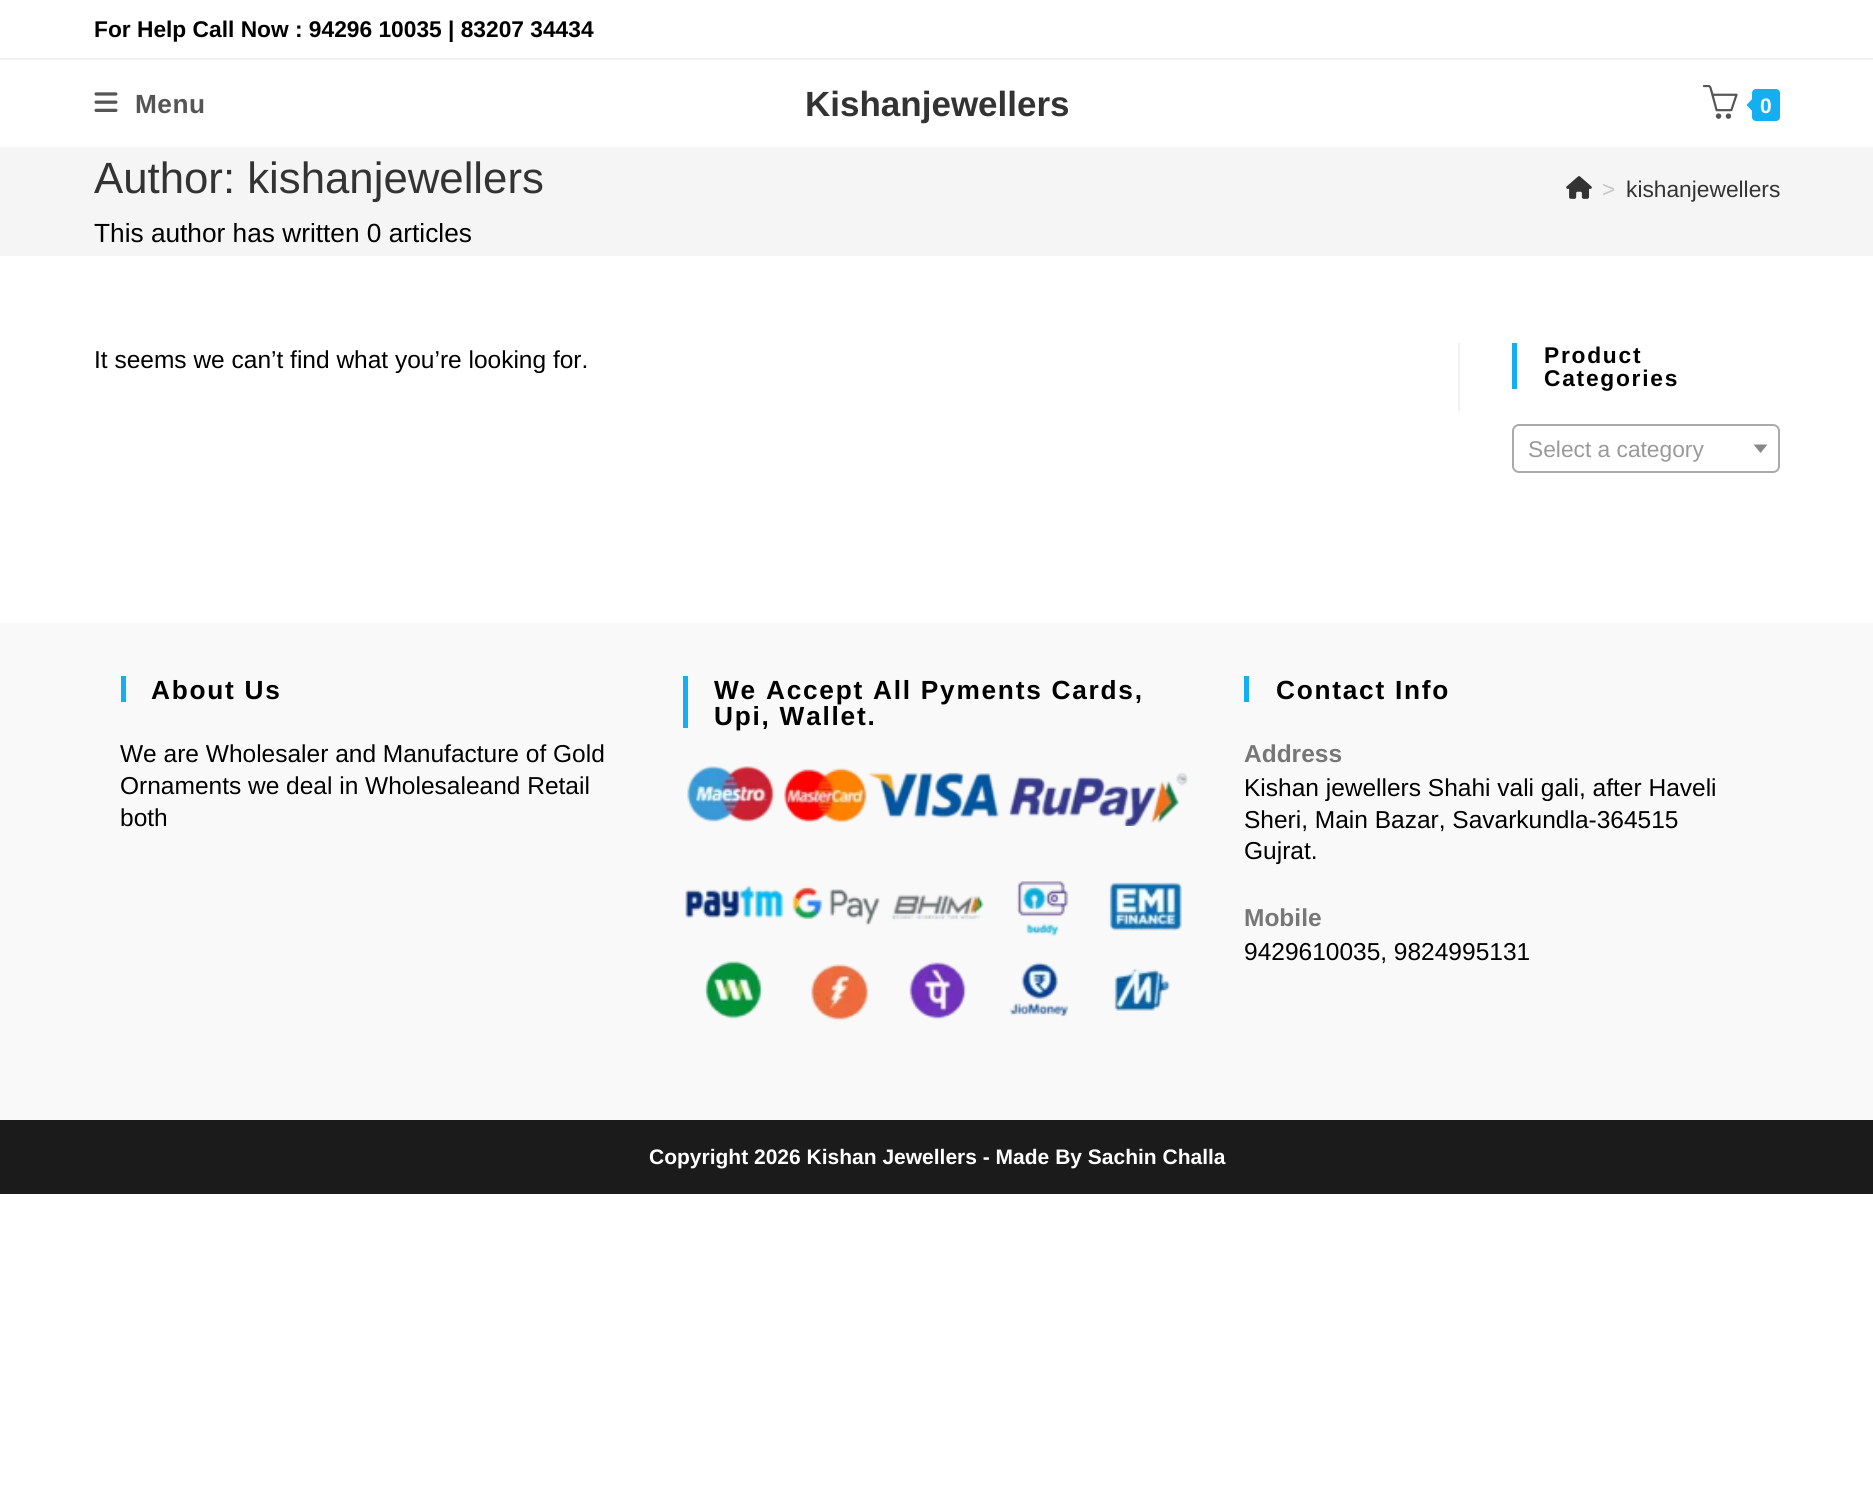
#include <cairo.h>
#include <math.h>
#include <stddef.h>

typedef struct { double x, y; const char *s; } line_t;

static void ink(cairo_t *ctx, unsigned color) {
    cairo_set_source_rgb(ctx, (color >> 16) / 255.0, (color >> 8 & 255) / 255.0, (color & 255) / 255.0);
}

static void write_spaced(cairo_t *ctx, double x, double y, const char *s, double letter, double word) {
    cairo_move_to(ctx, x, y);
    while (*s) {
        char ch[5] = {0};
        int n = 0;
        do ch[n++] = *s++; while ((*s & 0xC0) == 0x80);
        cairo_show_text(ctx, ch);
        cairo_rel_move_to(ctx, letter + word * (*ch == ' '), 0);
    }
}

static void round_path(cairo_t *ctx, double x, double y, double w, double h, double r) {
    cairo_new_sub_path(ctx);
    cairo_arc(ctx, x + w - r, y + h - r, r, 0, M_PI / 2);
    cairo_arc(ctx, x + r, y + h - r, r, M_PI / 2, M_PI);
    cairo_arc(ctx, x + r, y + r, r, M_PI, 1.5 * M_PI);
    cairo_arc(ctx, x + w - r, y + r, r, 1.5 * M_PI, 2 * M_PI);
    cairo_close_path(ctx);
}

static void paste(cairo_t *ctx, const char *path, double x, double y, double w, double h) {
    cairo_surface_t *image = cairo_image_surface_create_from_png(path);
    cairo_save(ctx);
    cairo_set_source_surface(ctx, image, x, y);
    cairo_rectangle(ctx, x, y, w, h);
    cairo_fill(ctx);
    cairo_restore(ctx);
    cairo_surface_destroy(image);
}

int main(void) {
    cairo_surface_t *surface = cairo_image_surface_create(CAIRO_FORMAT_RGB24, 1873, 1498);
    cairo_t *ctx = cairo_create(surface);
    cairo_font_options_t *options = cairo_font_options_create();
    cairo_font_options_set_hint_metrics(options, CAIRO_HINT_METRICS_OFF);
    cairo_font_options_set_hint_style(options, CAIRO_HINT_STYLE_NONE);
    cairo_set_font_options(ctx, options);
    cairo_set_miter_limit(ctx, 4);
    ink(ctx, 0xFFFFFF);
    cairo_paint(ctx);
    ink(ctx, 0xF1F1F1);
    cairo_rectangle(ctx, 0, 58, 1873, 2);
    cairo_fill(ctx);
    cairo_select_font_face(ctx, "Liberation Sans", CAIRO_FONT_SLANT_NORMAL, CAIRO_FONT_WEIGHT_BOLD);
    cairo_set_font_size(ctx, 22.75);
    ink(ctx, 0x000000);
    cairo_move_to(ctx, 94, 37);
    cairo_show_text(ctx, "For Help Call Now : 94296 10035 | 83207 34434");
    paste(ctx, "media/1.png", 94, 92, 24, 20);
    cairo_set_font_size(ctx, 26.25);
    ink(ctx, 0x555555);
    write_spaced(ctx, 135, 113, "Menu", 0.5, 0);
    cairo_set_font_size(ctx, 35);
    ink(ctx, 0x333333);
    cairo_move_to(ctx, 805, 116);
    cairo_show_text(ctx, "Kishanjewellers");
    paste(ctx, "media/2.png", 1702, 85, 36, 34);
    ink(ctx, 0x13AFF0);
    round_path(ctx, 1752, 89, 28, 32, 4);
    cairo_fill(ctx);
    cairo_new_path(ctx);
    cairo_move_to(ctx, 1755, 96);
    cairo_line_to(ctx, 1755, 114);
    cairo_line_to(ctx, 1746.5, 105);
    cairo_close_path(ctx);
    cairo_fill(ctx);
    cairo_set_font_size(ctx, 21);
    ink(ctx, 0xFFFFFF);
    write_spaced(ctx, 1760, 113, "0", 0.5, 0);
    ink(ctx, 0xF5F5F5);
    cairo_rectangle(ctx, 0, 147, 1873, 109);
    cairo_fill(ctx);
    cairo_select_font_face(ctx, "Liberation Sans", CAIRO_FONT_SLANT_NORMAL, CAIRO_FONT_WEIGHT_NORMAL);
    cairo_set_font_size(ctx, 43.75);
    ink(ctx, 0x333333);
    cairo_move_to(ctx, 94, 193);
    cairo_show_text(ctx, "Author: kishanjewellers");
    paste(ctx, "media/3.png", 1566, 176, 26, 23);
    cairo_set_font_size(ctx, 22.75);
    ink(ctx, 0xC6C6C6);
    cairo_move_to(ctx, 1602, 197);
    cairo_show_text(ctx, ">");
    ink(ctx, 0x333333);
    cairo_move_to(ctx, 1626, 197);
    cairo_show_text(ctx, "kishanjewellers");
    cairo_set_font_size(ctx, 26.25);
    ink(ctx, 0x000000);
    cairo_move_to(ctx, 94, 242);
    cairo_show_text(ctx, "This author has written 0 articles");
    ink(ctx, 0xF1F1F1);
    cairo_rectangle(ctx, 1458, 343, 2, 68);
    cairo_fill(ctx);
    cairo_set_font_size(ctx, 24.5);
    ink(ctx, 0x000000);
    cairo_move_to(ctx, 94, 368);
    cairo_show_text(ctx, "It seems we can’t find what you’re looking for.");
    ink(ctx, 0x13AFF0);
    cairo_rectangle(ctx, 1512, 343, 5, 46);
    cairo_fill(ctx);
    cairo_select_font_face(ctx, "Liberation Sans", CAIRO_FONT_SLANT_NORMAL, CAIRO_FONT_WEIGHT_BOLD);
    cairo_set_font_size(ctx, 22.75);
    ink(ctx, 0x000000);
    write_spaced(ctx, 1544, 363, "Product", 1.75, 0);
    write_spaced(ctx, 1544, 386, "Categories", 1.75, 0);
    round_path(ctx, 1513, 425, 266, 47, 6);
    ink(ctx, 0xAAAAAA);
    cairo_stroke(ctx);
    cairo_select_font_face(ctx, "Liberation Sans", CAIRO_FONT_SLANT_NORMAL, CAIRO_FONT_WEIGHT_NORMAL);
    ink(ctx, 0x999999);
    cairo_move_to(ctx, 1528, 457);
    cairo_show_text(ctx, "Select a category");
    ink(ctx, 0x888888);
    cairo_new_path(ctx);
    cairo_move_to(ctx, 1753.5, 444.5);
    cairo_line_to(ctx, 1767.5, 444.5);
    cairo_line_to(ctx, 1760.5, 453);
    cairo_close_path(ctx);
    cairo_fill(ctx);
    ink(ctx, 0xF9F9F9);
    cairo_rectangle(ctx, 0, 623, 1873, 497);
    cairo_fill(ctx);
    ink(ctx, 0x13AFF0);
    cairo_rectangle(ctx, 121, 676, 5, 26);
    cairo_fill(ctx);
    cairo_select_font_face(ctx, "Liberation Sans", CAIRO_FONT_SLANT_NORMAL, CAIRO_FONT_WEIGHT_BOLD);
    cairo_set_font_size(ctx, 26.25);
    ink(ctx, 0x000000);
    write_spaced(ctx, 151, 699, "About Us", 1.75, 0);
    cairo_select_font_face(ctx, "Liberation Sans", CAIRO_FONT_SLANT_NORMAL, CAIRO_FONT_WEIGHT_NORMAL);
    cairo_set_font_size(ctx, 24.5);
    {
        static const line_t items[] = {
            {120, 762, "We are Wholesaler and Manufacture of Gold"},
            {120, 794, "Ornaments we deal in Wholesaleand Retail"},
            {120, 826, "both"},
        };
        for (size_t i = 0; i < sizeof items / sizeof *items; i++) {
            cairo_move_to(ctx, items[i].x, items[i].y);
            cairo_show_text(ctx, items[i].s);
        }
    }
    ink(ctx, 0x13AFF0);
    cairo_rectangle(ctx, 683, 676, 5, 52);
    cairo_fill(ctx);
    cairo_select_font_face(ctx, "Liberation Sans", CAIRO_FONT_SLANT_NORMAL, CAIRO_FONT_WEIGHT_BOLD);
    cairo_set_font_size(ctx, 26.25);
    ink(ctx, 0x000000);
    write_spaced(ctx, 714, 699, "We Accept All Pyments Cards,", 1.75, 0);
    write_spaced(ctx, 714, 725, "Upi, Wallet.", 1.75, 0);
    paste(ctx, "media/4.png", 687, 766, 501, 60);
    paste(ctx, "media/5.png", 685, 881, 497, 140);
    ink(ctx, 0x13AFF0);
    cairo_rectangle(ctx, 1244, 676, 5, 26);
    cairo_fill(ctx);
    ink(ctx, 0x000000);
    write_spaced(ctx, 1276, 699, "Contact Info", 1.75, 0);
    cairo_set_font_size(ctx, 24.5);
    ink(ctx, 0x777777);
    cairo_move_to(ctx, 1244, 762);
    cairo_show_text(ctx, "Address");
    cairo_select_font_face(ctx, "Liberation Sans", CAIRO_FONT_SLANT_NORMAL, CAIRO_FONT_WEIGHT_NORMAL);
    ink(ctx, 0x000000);
    {
        static const line_t items[] = {
            {1244, 796, "Kishan jewellers Shahi vali gali, after Haveli"},
            {1244, 828, "Sheri, Main Bazar, Savarkundla-364515"},
            {1244, 859, "Gujrat."},
        };
        for (size_t i = 0; i < sizeof items / sizeof *items; i++) {
            cairo_move_to(ctx, items[i].x, items[i].y);
            cairo_show_text(ctx, items[i].s);
        }
    }
    cairo_select_font_face(ctx, "Liberation Sans", CAIRO_FONT_SLANT_NORMAL, CAIRO_FONT_WEIGHT_BOLD);
    ink(ctx, 0x777777);
    cairo_move_to(ctx, 1244, 926);
    cairo_show_text(ctx, "Mobile");
    cairo_select_font_face(ctx, "Liberation Sans", CAIRO_FONT_SLANT_NORMAL, CAIRO_FONT_WEIGHT_NORMAL);
    ink(ctx, 0x000000);
    cairo_move_to(ctx, 1244, 960);
    cairo_show_text(ctx, "9429610035, 9824995131");
    ink(ctx, 0x1B1B1B);
    cairo_rectangle(ctx, 0, 1120, 1873, 74);
    cairo_fill(ctx);
    cairo_select_font_face(ctx, "Liberation Sans", CAIRO_FONT_SLANT_NORMAL, CAIRO_FONT_WEIGHT_BOLD);
    cairo_set_font_size(ctx, 21);
    ink(ctx, 0xFFFFFF);
    cairo_move_to(ctx, 649, 1164);
    cairo_show_text(ctx, "Copyright 2026 Kishan Jewellers - Made By Sachin Challa");
    cairo_surface_write_to_png(surface, "image.png");
    cairo_font_options_destroy(options);
    cairo_destroy(ctx);
    cairo_surface_destroy(surface);
    return 0;
}
